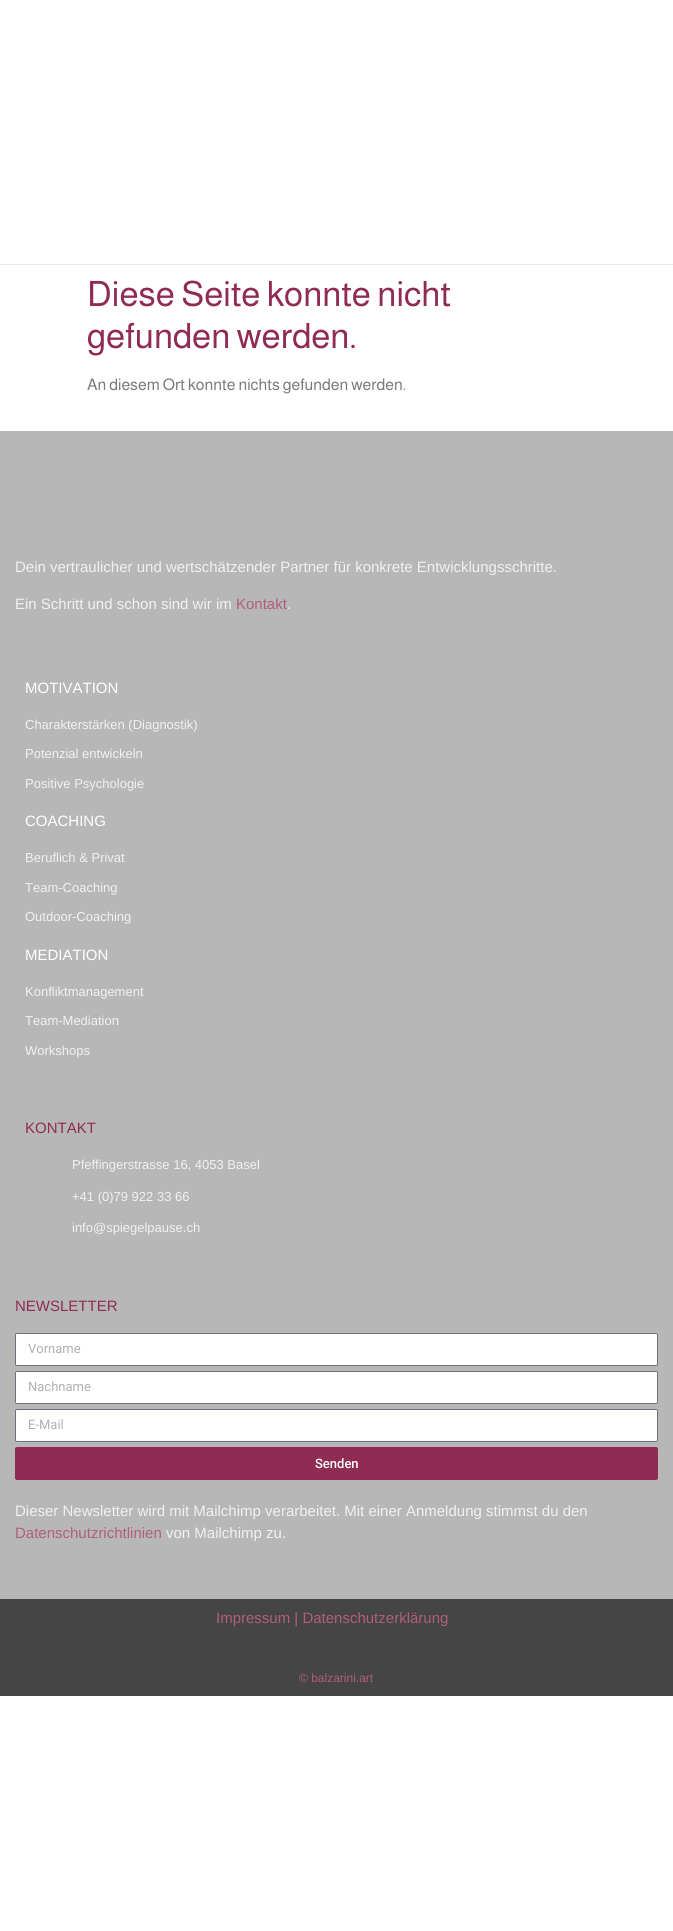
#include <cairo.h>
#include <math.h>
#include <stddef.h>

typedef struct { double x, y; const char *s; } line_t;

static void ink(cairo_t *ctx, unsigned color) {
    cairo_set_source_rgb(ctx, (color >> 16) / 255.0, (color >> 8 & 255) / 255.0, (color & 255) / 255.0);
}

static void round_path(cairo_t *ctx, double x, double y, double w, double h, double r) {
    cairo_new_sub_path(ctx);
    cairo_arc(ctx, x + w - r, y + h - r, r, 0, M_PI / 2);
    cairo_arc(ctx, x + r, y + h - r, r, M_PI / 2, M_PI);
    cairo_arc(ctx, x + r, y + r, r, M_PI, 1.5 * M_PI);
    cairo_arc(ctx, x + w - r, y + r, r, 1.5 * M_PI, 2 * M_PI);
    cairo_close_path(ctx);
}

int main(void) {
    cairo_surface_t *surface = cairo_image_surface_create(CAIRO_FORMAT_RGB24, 673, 1931);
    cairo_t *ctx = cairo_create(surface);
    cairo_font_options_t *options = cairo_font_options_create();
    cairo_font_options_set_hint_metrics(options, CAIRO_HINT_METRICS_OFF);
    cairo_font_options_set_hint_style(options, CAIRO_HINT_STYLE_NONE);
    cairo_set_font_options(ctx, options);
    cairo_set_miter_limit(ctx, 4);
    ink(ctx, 0xFFFFFF);
    cairo_paint(ctx);
    ink(ctx, 0xE7E7E7);
    cairo_rectangle(ctx, 0, 264, 673, 1);
    cairo_fill(ctx);
    cairo_select_font_face(ctx, "Almarai", CAIRO_FONT_SLANT_NORMAL, CAIRO_FONT_WEIGHT_NORMAL);
    cairo_set_font_size(ctx, 35);
    ink(ctx, 0x902B53);
    cairo_move_to(ctx, 87, 306);
    cairo_show_text(ctx, "Diese Seite konnte nicht");
    cairo_move_to(ctx, 87, 348);
    cairo_show_text(ctx, "gefunden werden.");
    cairo_set_font_size(ctx, 16);
    ink(ctx, 0x7A7A7A);
    cairo_move_to(ctx, 87, 390);
    cairo_show_text(ctx, "An diesem Ort konnte nichts gefunden werden.");
    ink(ctx, 0xB7B7B7);
    cairo_rectangle(ctx, 0, 431, 673, 1168);
    cairo_fill(ctx);
    cairo_select_font_face(ctx, "Liberation Sans", CAIRO_FONT_SLANT_NORMAL, CAIRO_FONT_WEIGHT_NORMAL);
    cairo_set_font_size(ctx, 15);
    ink(ctx, 0xF1F1F1);
    cairo_move_to(ctx, 15, 572);
    cairo_show_text(ctx, "Dein vertraulicher und wertschätzender Partner für konkrete Entwicklungsschritte.");
    cairo_move_to(ctx, 15, 609);
    cairo_show_text(ctx, "Ein Schritt und schon sind wir im");
    ink(ctx, 0xB15D7E);
    cairo_move_to(ctx, 236, 609);
    cairo_show_text(ctx, "Kontakt");
    ink(ctx, 0xF1F1F1);
    cairo_move_to(ctx, 287, 609);
    cairo_show_text(ctx, ".");
    ink(ctx, 0xFFFFFF);
    cairo_move_to(ctx, 25, 693);
    cairo_show_text(ctx, "MOTIVATION");
    cairo_set_font_size(ctx, 13);
    ink(ctx, 0xF1F1F1);
    {
        static const line_t items[] = {
            {25, 729, "Charakterstärken (Diagnostik)"},
            {25, 758, "Potenzial entwickeln"},
            {25, 788, "Positive Psychologie"},
        };
        for (size_t i = 0; i < sizeof items / sizeof *items; i++) {
            cairo_move_to(ctx, items[i].x, items[i].y);
            cairo_show_text(ctx, items[i].s);
        }
    }
    cairo_set_font_size(ctx, 15);
    ink(ctx, 0xFFFFFF);
    cairo_move_to(ctx, 25, 826);
    cairo_show_text(ctx, "COACHING");
    cairo_set_font_size(ctx, 13);
    ink(ctx, 0xF1F1F1);
    {
        static const line_t items[] = {
            {25, 862, "Beruflich & Privat"},
            {25, 892, "Team-Coaching"},
            {25, 921, "Outdoor-Coaching"},
        };
        for (size_t i = 0; i < sizeof items / sizeof *items; i++) {
            cairo_move_to(ctx, items[i].x, items[i].y);
            cairo_show_text(ctx, items[i].s);
        }
    }
    cairo_set_font_size(ctx, 15);
    ink(ctx, 0xFFFFFF);
    cairo_move_to(ctx, 25, 960);
    cairo_show_text(ctx, "MEDIATION");
    cairo_set_font_size(ctx, 13);
    ink(ctx, 0xF1F1F1);
    {
        static const line_t items[] = {
            {25, 996, "Konfliktmanagement"},
            {25, 1025, "Team-Mediation"},
            {25, 1055, "Workshops"},
        };
        for (size_t i = 0; i < sizeof items / sizeof *items; i++) {
            cairo_move_to(ctx, items[i].x, items[i].y);
            cairo_show_text(ctx, items[i].s);
        }
    }
    cairo_set_font_size(ctx, 15);
    ink(ctx, 0x902B53);
    cairo_move_to(ctx, 25, 1133);
    cairo_show_text(ctx, "KONTAKT");
    cairo_set_font_size(ctx, 13);
    ink(ctx, 0xF1F1F1);
    {
        static const line_t items[] = {
            {72, 1169, "Pfeffingerstrasse 16, 4053 Basel"},
            {72, 1201, "+41 (0)79 922 33 66"},
            {72, 1232, "info@spiegelpause.ch"},
        };
        for (size_t i = 0; i < sizeof items / sizeof *items; i++) {
            cairo_move_to(ctx, items[i].x, items[i].y);
            cairo_show_text(ctx, items[i].s);
        }
    }
    cairo_set_font_size(ctx, 15);
    ink(ctx, 0x902B53);
    cairo_move_to(ctx, 15, 1311);
    cairo_show_text(ctx, "NEWSLETTER");
    ink(ctx, 0xFFFFFF);
    round_path(ctx, 15.5, 1333.5, 642, 32, 1.5);
    cairo_fill_preserve(ctx);
    ink(ctx, 0x69727D);
    cairo_set_line_width(ctx, 1);
    cairo_stroke(ctx);
    cairo_select_font_face(ctx, "Roboto", CAIRO_FONT_SLANT_NORMAL, CAIRO_FONT_WEIGHT_NORMAL);
    cairo_set_font_size(ctx, 13);
    ink(ctx, 0xAFAFAF);
    cairo_move_to(ctx, 28, 1353);
    cairo_show_text(ctx, "Vorname");
    ink(ctx, 0xFFFFFF);
    round_path(ctx, 15.5, 1371.5, 642, 32, 1.5);
    cairo_fill_preserve(ctx);
    ink(ctx, 0x69727D);
    cairo_stroke(ctx);
    ink(ctx, 0xAFAFAF);
    cairo_move_to(ctx, 28, 1391);
    cairo_show_text(ctx, "Nachname");
    ink(ctx, 0xFFFFFF);
    round_path(ctx, 15.5, 1409.5, 642, 32, 1.5);
    cairo_fill_preserve(ctx);
    ink(ctx, 0x69727D);
    cairo_stroke(ctx);
    ink(ctx, 0xAFAFAF);
    cairo_move_to(ctx, 28, 1429);
    cairo_show_text(ctx, "E-Mail");
    ink(ctx, 0x902B53);
    round_path(ctx, 15, 1447, 643, 33, 2);
    cairo_fill(ctx);
    cairo_select_font_face(ctx, "Roboto Medium", CAIRO_FONT_SLANT_NORMAL, CAIRO_FONT_WEIGHT_NORMAL);
    ink(ctx, 0xFFFFFF);
    cairo_move_to(ctx, 315, 1468);
    cairo_show_text(ctx, "Senden");
    cairo_select_font_face(ctx, "Liberation Sans", CAIRO_FONT_SLANT_NORMAL, CAIRO_FONT_WEIGHT_NORMAL);
    cairo_set_font_size(ctx, 15);
    ink(ctx, 0xF1F1F1);
    cairo_move_to(ctx, 15, 1516);
    cairo_show_text(ctx, "Dieser Newsletter wird mit Mailchimp verarbeitet. Mit einer Anmeldung stimmst du den");
    ink(ctx, 0xB15D7E);
    cairo_move_to(ctx, 15, 1538);
    cairo_show_text(ctx, "Datenschutzrichtlinien");
    ink(ctx, 0xF1F1F1);
    cairo_move_to(ctx, 166, 1538);
    cairo_show_text(ctx, "von Mailchimp zu.");
    ink(ctx, 0x454545);
    cairo_rectangle(ctx, 0, 1599, 673, 97);
    cairo_fill(ctx);
    ink(ctx, 0xB15D7E);
    cairo_move_to(ctx, 216, 1623);
    cairo_show_text(ctx, "Impressum | Datenschutzerklärung");
    cairo_set_font_size(ctx, 12);
    cairo_move_to(ctx, 299, 1682);
    cairo_show_text(ctx, "© balzarini.art");
    cairo_surface_write_to_png(surface, "image.png");
    cairo_font_options_destroy(options);
    cairo_destroy(ctx);
    cairo_surface_destroy(surface);
    return 0;
}
